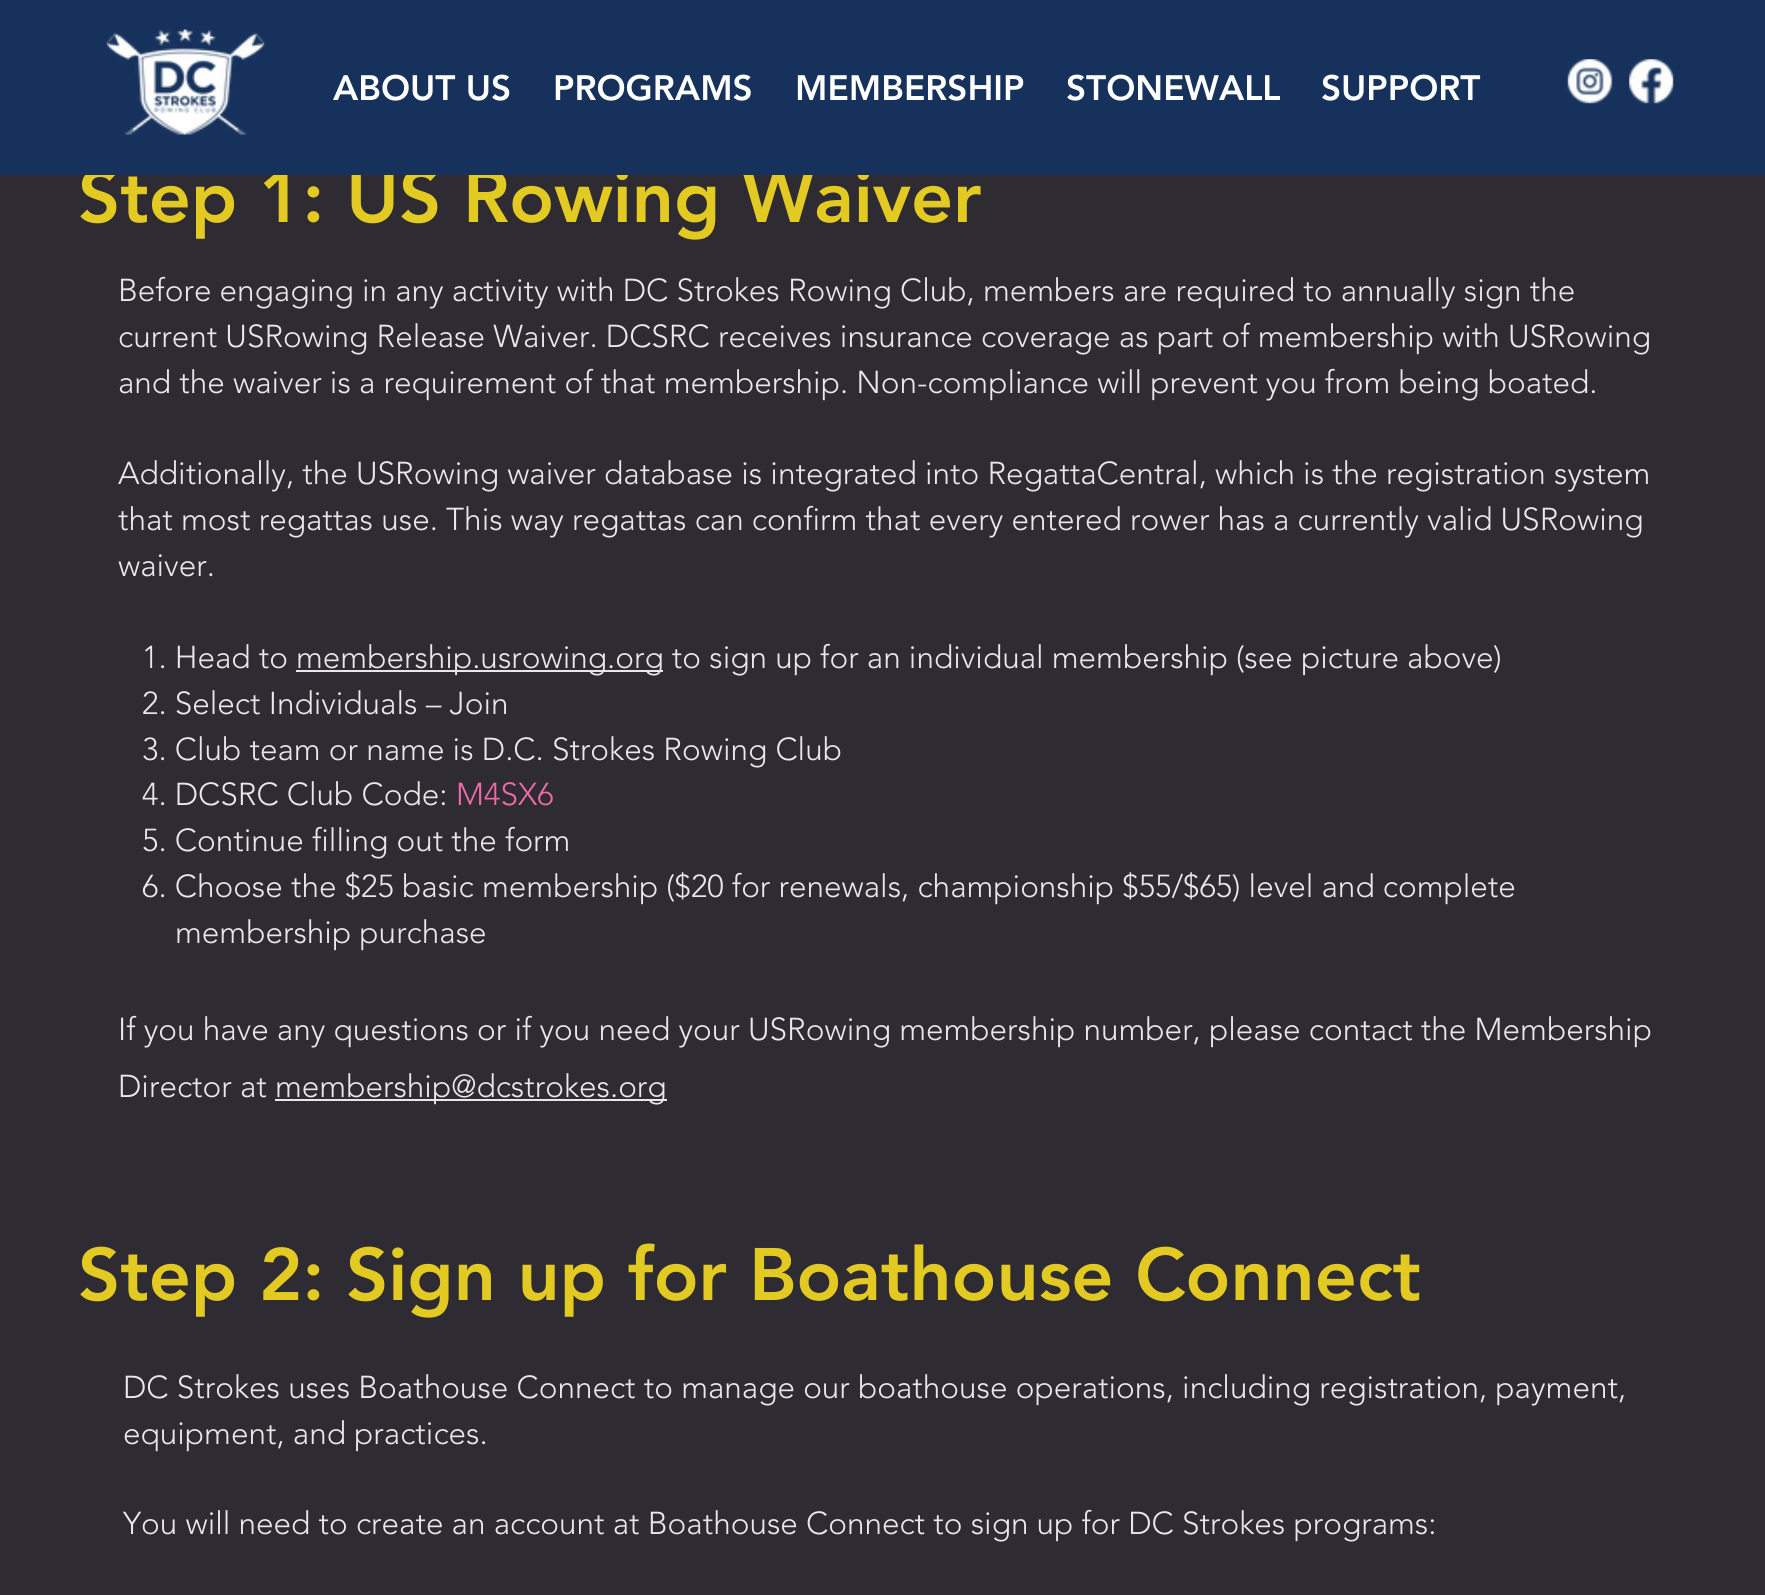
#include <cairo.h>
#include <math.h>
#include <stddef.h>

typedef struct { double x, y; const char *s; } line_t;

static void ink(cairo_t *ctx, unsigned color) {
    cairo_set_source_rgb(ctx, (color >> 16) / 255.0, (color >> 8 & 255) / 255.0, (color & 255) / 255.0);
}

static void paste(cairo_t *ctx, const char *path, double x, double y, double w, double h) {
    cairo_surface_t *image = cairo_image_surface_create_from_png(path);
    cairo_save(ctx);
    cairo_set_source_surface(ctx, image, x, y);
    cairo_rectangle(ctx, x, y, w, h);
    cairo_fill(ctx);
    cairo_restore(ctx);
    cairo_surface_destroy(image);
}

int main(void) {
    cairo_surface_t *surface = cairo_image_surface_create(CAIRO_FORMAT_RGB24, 1765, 1595);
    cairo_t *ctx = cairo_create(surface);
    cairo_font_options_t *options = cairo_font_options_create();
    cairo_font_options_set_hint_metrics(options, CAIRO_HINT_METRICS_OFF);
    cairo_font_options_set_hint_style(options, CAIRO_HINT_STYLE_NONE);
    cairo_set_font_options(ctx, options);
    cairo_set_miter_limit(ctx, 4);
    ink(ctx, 0x2F2B32);
    cairo_paint(ctx);
    cairo_select_font_face(ctx, "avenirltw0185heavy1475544 Black", CAIRO_FONT_SLANT_NORMAL, CAIRO_FONT_WEIGHT_NORMAL);
    cairo_set_font_size(ctx, 73.5);
    ink(ctx, 0xE3CA22);
    cairo_move_to(ctx, 78, 222);
    cairo_show_text(ctx, "Step 1: US Rowing Waiver");
    ink(ctx, 0x16325C);
    cairo_rectangle(ctx, 0, 0, 1765, 175);
    cairo_fill(ctx);
    paste(ctx, "media/1.png", 106, 29, 159, 106);
    cairo_set_font_size(ctx, 35);
    ink(ctx, 0xFFFFFF);
    {
        static const line_t items[] = {
            {333, 100, "ABOUT US"},
            {553, 100, "PROGRAMS"},
            {795, 100, "MEMBERSHIP"},
            {1066, 100, "STONEWALL"},
            {1321, 100, "SUPPORT"},
        };
        for (size_t i = 0; i < sizeof items / sizeof *items; i++) {
            cairo_move_to(ctx, items[i].x, items[i].y);
            cairo_show_text(ctx, items[i].s);
        }
    }
    paste(ctx, "media/2.png", 1567, 59, 46, 45);
    paste(ctx, "media/3.png", 1629, 59, 45, 45);
    cairo_select_font_face(ctx, "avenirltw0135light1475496 Light", CAIRO_FONT_SLANT_NORMAL, CAIRO_FONT_WEIGHT_NORMAL);
    cairo_set_font_size(ctx, 31.5);
    ink(ctx, 0xE8E8E8);
    {
        static const line_t items[] = {
            {118, 301, "Before engaging in any activity with DC Strokes Rowing Club, members are required to annually sign the"},
            {118, 347, "current USRowing Release Waiver. DCSRC receives insurance coverage as part of membership with USRowing"},
            {118, 393, "and the waiver is a requirement of that membership. Non-compliance will prevent you from being boated."},
            {118, 484, "Additionally, the USRowing waiver database is integrated into RegattaCentral, which is the registration system"},
            {118, 530, "that most regattas use. This way regattas can confirm that every entered rower has a currently valid USRowing"},
            {118, 576, "waiver."},
            {142, 668, "1. Head to"},
        };
        for (size_t i = 0; i < sizeof items / sizeof *items; i++) {
            cairo_move_to(ctx, items[i].x, items[i].y);
            cairo_show_text(ctx, items[i].s);
        }
    }
    cairo_rectangle(ctx, 296, 670, 367, 2);
    cairo_fill(ctx);
    {
        static const line_t items[] = {
            {296, 668, "membership.usrowing.org to sign up for an individual membership (see picture above)"},
            {142, 714, "2. Select Individuals – Join"},
            {142, 760, "3. Club team or name is D.C. Strokes Rowing Club"},
            {142, 805, "4. DCSRC Club Code:"},
        };
        for (size_t i = 0; i < sizeof items / sizeof *items; i++) {
            cairo_move_to(ctx, items[i].x, items[i].y);
            cairo_show_text(ctx, items[i].s);
        }
    }
    ink(ctx, 0xF06BA8);
    cairo_move_to(ctx, 456, 805);
    cairo_show_text(ctx, "M4SX6");
    ink(ctx, 0xE8E8E8);
    {
        static const line_t items[] = {
            {142, 851, "5. Continue filling out the form"},
            {142, 897, "6. Choose the $25 basic membership ($20 for renewals, championship $55/$65) level and complete"},
            {175, 943, "membership purchase"},
            {118, 1040, "If you have any questions or if you need your USRowing membership number, please contact the Membership"},
            {118, 1097, "Director at"},
        };
        for (size_t i = 0; i < sizeof items / sizeof *items; i++) {
            cairo_move_to(ctx, items[i].x, items[i].y);
            cairo_show_text(ctx, items[i].s);
        }
    }
    cairo_rectangle(ctx, 275, 1099, 392, 2);
    cairo_fill(ctx);
    cairo_move_to(ctx, 275, 1097);
    cairo_show_text(ctx, "membership@dcstrokes.org");
    cairo_select_font_face(ctx, "avenirltw0185heavy1475544 Black", CAIRO_FONT_SLANT_NORMAL, CAIRO_FONT_WEIGHT_NORMAL);
    cairo_set_font_size(ctx, 73.5);
    ink(ctx, 0xE3CA22);
    cairo_move_to(ctx, 78, 1300);
    cairo_show_text(ctx, "Step 2: Sign up for Boathouse Connect");
    cairo_select_font_face(ctx, "avenirltw0135light1475496 Light", CAIRO_FONT_SLANT_NORMAL, CAIRO_FONT_WEIGHT_NORMAL);
    cairo_set_font_size(ctx, 31.5);
    ink(ctx, 0xE8E8E8);
    {
        static const line_t items[] = {
            {123, 1398, "DC Strokes uses Boathouse Connect to manage our boathouse operations, including registration, payment,"},
            {123, 1444, "equipment, and practices."},
            {123, 1534, "You will need to create an account at Boathouse Connect to sign up for DC Strokes programs:"},
        };
        for (size_t i = 0; i < sizeof items / sizeof *items; i++) {
            cairo_move_to(ctx, items[i].x, items[i].y);
            cairo_show_text(ctx, items[i].s);
        }
    }
    cairo_surface_write_to_png(surface, "image.png");
    cairo_font_options_destroy(options);
    cairo_destroy(ctx);
    cairo_surface_destroy(surface);
    return 0;
}
